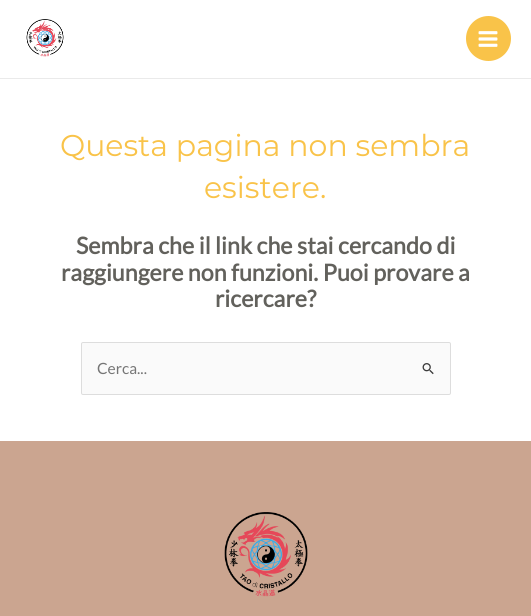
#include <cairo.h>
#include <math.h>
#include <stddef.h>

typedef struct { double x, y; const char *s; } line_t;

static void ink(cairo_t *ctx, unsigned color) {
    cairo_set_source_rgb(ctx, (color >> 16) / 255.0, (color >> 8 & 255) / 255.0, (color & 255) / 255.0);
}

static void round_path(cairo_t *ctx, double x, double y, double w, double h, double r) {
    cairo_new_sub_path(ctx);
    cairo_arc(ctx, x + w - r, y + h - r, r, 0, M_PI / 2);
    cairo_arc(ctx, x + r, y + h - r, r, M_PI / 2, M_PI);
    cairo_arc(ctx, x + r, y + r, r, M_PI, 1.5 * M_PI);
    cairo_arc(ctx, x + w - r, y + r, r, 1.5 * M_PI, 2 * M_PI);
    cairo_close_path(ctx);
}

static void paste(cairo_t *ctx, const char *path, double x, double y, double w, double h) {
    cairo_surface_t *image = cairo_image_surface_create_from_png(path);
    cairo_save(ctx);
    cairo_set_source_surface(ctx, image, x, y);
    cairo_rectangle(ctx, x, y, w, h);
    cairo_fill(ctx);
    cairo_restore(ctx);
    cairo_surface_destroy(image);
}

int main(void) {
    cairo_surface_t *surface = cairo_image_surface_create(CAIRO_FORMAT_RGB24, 531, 616);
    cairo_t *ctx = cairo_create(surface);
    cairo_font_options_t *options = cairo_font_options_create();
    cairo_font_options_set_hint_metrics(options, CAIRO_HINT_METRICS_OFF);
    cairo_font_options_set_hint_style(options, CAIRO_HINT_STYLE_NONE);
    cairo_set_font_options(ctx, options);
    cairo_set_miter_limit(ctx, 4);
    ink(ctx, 0xFFFFFF);
    cairo_paint(ctx);
    ink(ctx, 0xEAEAEA);
    cairo_rectangle(ctx, 0, 78, 531, 1);
    cairo_fill(ctx);
    paste(ctx, "media/1.png", 26, 19, 38, 38);
    ink(ctx, 0xF9C349);
    cairo_arc(ctx, 488.5, 38.5, 22.5, 0, 2 * M_PI);
    cairo_fill(ctx);
    paste(ctx, "media/2.png", 478, 31, 20, 16);
    cairo_select_font_face(ctx, "Montserrat", CAIRO_FONT_SLANT_NORMAL, CAIRO_FONT_WEIGHT_NORMAL);
    cairo_set_font_size(ctx, 30);
    cairo_move_to(ctx, 60, 156);
    cairo_show_text(ctx, "Questa pagina non sembra");
    cairo_move_to(ctx, 204, 198);
    cairo_show_text(ctx, "esistere.");
    cairo_select_font_face(ctx, "Lato", CAIRO_FONT_SLANT_NORMAL, CAIRO_FONT_WEIGHT_BOLD);
    cairo_set_font_size(ctx, 23.25);
    ink(ctx, 0x62615C);
    {
        static const line_t items[] = {
            {76, 254, "Sembra che il link che stai cercando di"},
            {61, 281, "raggiungere non funzioni. Puoi provare a"},
            {215, 307, "ricercare?"},
        };
        for (size_t i = 0; i < sizeof items / sizeof *items; i++) {
            cairo_move_to(ctx, items[i].x, items[i].y);
            cairo_show_text(ctx, items[i].s);
        }
    }
    ink(ctx, 0xFAFAFA);
    round_path(ctx, 81.5, 342.5, 369, 52, 1.5);
    cairo_fill_preserve(ctx);
    ink(ctx, 0xDDDDDD);
    cairo_set_line_width(ctx, 1);
    cairo_stroke(ctx);
    cairo_select_font_face(ctx, "Lato", CAIRO_FONT_SLANT_NORMAL, CAIRO_FONT_WEIGHT_NORMAL);
    cairo_set_font_size(ctx, 15.5);
    ink(ctx, 0x757575);
    cairo_move_to(ctx, 97, 374);
    cairo_show_text(ctx, "Cerca...");
    paste(ctx, "media/3.png", 422, 363, 12, 12);
    ink(ctx, 0xCBA590);
    cairo_rectangle(ctx, 0, 441, 531, 175);
    cairo_fill(ctx);
    paste(ctx, "media/4.png", 224, 512, 84, 85);
    cairo_surface_write_to_png(surface, "image.png");
    cairo_font_options_destroy(options);
    cairo_destroy(ctx);
    cairo_surface_destroy(surface);
    return 0;
}
